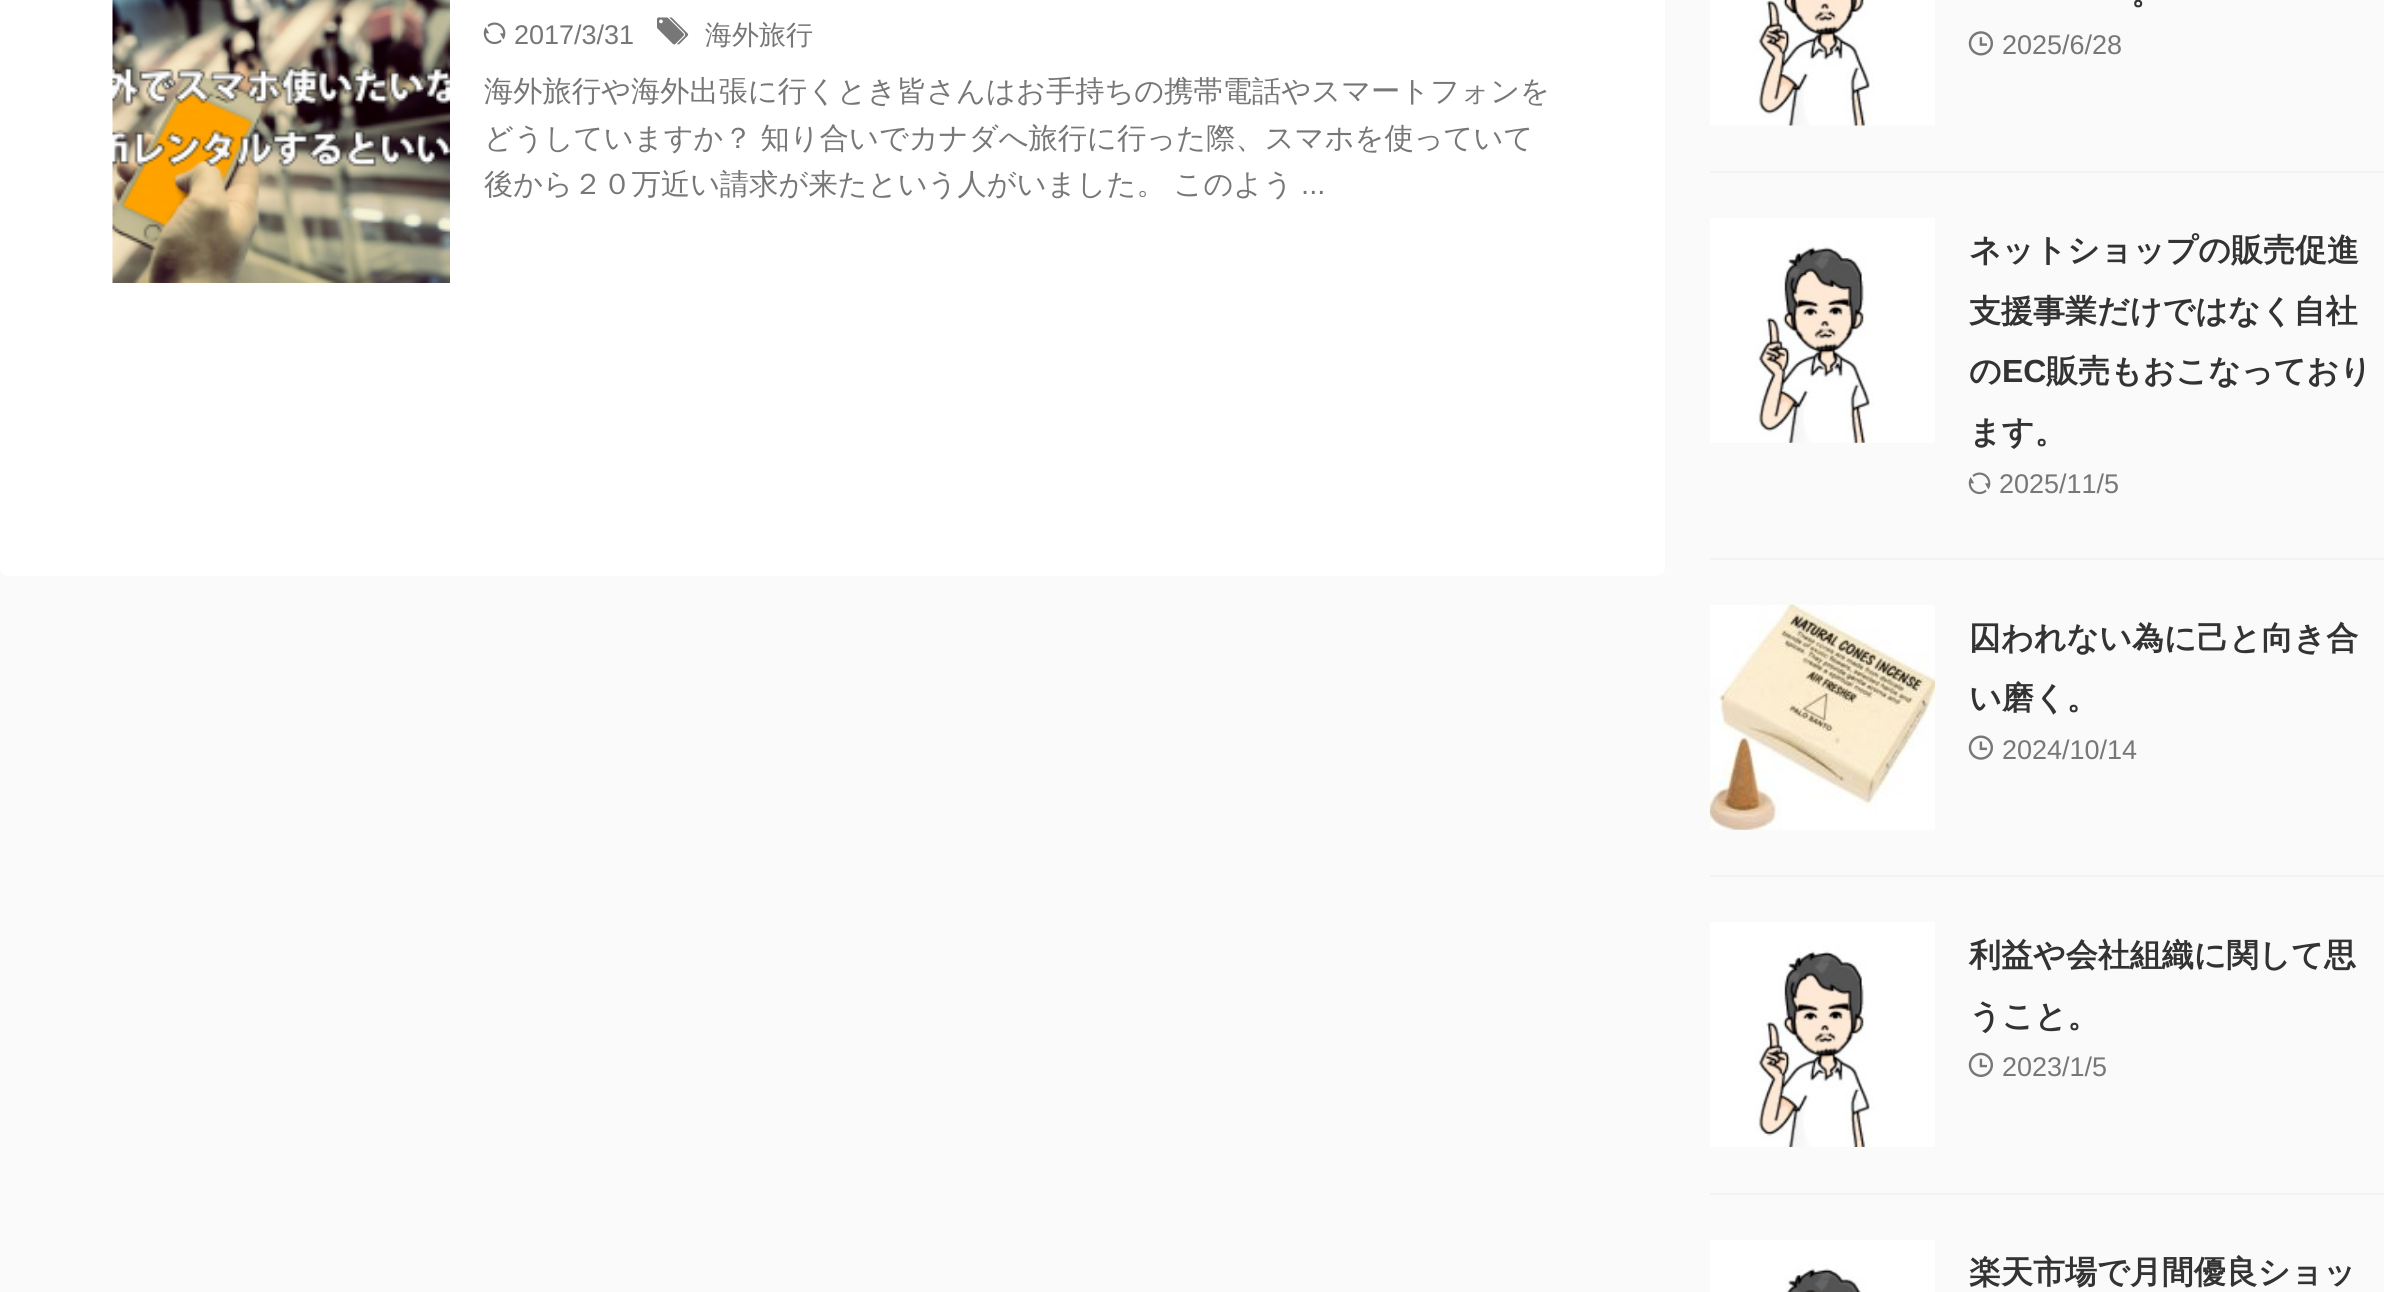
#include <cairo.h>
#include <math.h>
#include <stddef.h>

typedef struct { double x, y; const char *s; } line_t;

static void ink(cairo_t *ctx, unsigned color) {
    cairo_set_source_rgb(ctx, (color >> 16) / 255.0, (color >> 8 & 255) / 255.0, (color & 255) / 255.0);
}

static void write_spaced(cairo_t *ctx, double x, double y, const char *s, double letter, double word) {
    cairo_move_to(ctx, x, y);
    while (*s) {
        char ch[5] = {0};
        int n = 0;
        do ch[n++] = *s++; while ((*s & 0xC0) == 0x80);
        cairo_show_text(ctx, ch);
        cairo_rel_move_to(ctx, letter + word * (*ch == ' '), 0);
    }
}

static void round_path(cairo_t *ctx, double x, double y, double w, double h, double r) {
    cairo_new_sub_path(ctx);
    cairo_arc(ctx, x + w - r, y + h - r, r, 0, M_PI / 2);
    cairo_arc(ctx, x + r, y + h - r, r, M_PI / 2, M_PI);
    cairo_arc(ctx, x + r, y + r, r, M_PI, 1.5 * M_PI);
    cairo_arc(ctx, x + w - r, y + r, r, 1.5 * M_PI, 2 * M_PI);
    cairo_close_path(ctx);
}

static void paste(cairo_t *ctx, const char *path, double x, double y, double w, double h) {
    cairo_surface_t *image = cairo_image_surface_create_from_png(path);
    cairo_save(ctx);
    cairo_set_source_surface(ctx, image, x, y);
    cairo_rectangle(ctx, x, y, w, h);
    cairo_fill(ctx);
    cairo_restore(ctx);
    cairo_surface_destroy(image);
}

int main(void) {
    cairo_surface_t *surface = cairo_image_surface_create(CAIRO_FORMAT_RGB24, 2384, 1292);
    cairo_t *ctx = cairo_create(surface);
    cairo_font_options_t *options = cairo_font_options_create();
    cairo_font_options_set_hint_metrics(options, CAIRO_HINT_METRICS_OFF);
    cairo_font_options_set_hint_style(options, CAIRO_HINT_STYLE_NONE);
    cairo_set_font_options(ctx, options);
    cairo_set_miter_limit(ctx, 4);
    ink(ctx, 0xFAFAFA);
    cairo_paint(ctx);
    ink(ctx, 0xFFFFFF);
    round_path(ctx, 0, -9, 1665, 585, 9);
    cairo_fill(ctx);
    paste(ctx, "media/1.png", 112, 0, 338, 283);
    paste(ctx, "media/2.png", 483, 22, 23, 23);
    cairo_select_font_face(ctx, "Liberation Sans", CAIRO_FONT_SLANT_NORMAL, CAIRO_FONT_WEIGHT_NORMAL);
    cairo_set_font_size(ctx, 27);
    ink(ctx, 0x777777);
    cairo_move_to(ctx, 514, 44);
    cairo_show_text(ctx, "2017/3/31");
    paste(ctx, "media/3.png", 657, 17, 32, 28);
    cairo_select_font_face(ctx, "WenQuanYi Zen Hei Medium", CAIRO_FONT_SLANT_NORMAL, CAIRO_FONT_WEIGHT_NORMAL);
    cairo_move_to(ctx, 705, 44);
    cairo_show_text(ctx, "海外旅行");
    cairo_set_font_size(ctx, 29.25);
    cairo_move_to(ctx, 484, 101);
    cairo_show_text(ctx, "海外旅行や海外出張に行くとき皆さんはお手持ちの携帯電話やスマートフォンを");
    write_spaced(ctx, 484, 148, "どうしていますか？ 知り合いでカナダへ旅行に行った際、スマホを使っていて", 0, -1);
    write_spaced(ctx, 484, 194, "後から２０万近い請求が来たという人がいました。 このよう", 0, -1);
    cairo_select_font_face(ctx, "Liberation Sans", CAIRO_FONT_SLANT_NORMAL, CAIRO_FONT_WEIGHT_NORMAL);
    cairo_move_to(ctx, 1301, 194);
    cairo_show_text(ctx, "...");
    ink(ctx, 0xF3F3F3);
    cairo_rectangle(ctx, 1710, 171, 674, 2);
    cairo_fill(ctx);
    paste(ctx, "media/4.png", 1710, 0, 225, 126);
    cairo_select_font_face(ctx, "WenQuanYi Zen Hei", CAIRO_FONT_SLANT_NORMAL, CAIRO_FONT_WEIGHT_BOLD);
    cairo_set_font_size(ctx, 32);
    ink(ctx, 0x333333);
    cairo_move_to(ctx, 2131, 4);
    cairo_show_text(ctx, "。");
    paste(ctx, "media/5.png", 1968, 31, 25, 25);
    cairo_select_font_face(ctx, "Liberation Sans", CAIRO_FONT_SLANT_NORMAL, CAIRO_FONT_WEIGHT_NORMAL);
    cairo_set_font_size(ctx, 27);
    ink(ctx, 0x777777);
    cairo_move_to(ctx, 2002, 54);
    cairo_show_text(ctx, "2025/6/28");
    ink(ctx, 0xF3F3F3);
    cairo_rectangle(ctx, 1710, 558, 674, 2);
    cairo_fill(ctx);
    paste(ctx, "media/6.png", 1710, 218, 225, 225);
    cairo_select_font_face(ctx, "WenQuanYi Zen Hei", CAIRO_FONT_SLANT_NORMAL, CAIRO_FONT_WEIGHT_BOLD);
    cairo_set_font_size(ctx, 32);
    ink(ctx, 0x333333);
    {
        static const line_t items[] = {
            {1969, 261, "ネットショップの販売促進"},
            {1969, 322, "支援事業だけではなく自社"},
            {1969, 382, "の"},
        };
        for (size_t i = 0; i < sizeof items / sizeof *items; i++) {
            cairo_move_to(ctx, items[i].x, items[i].y);
            cairo_show_text(ctx, items[i].s);
        }
    }
    cairo_select_font_face(ctx, "Liberation Sans", CAIRO_FONT_SLANT_NORMAL, CAIRO_FONT_WEIGHT_BOLD);
    cairo_move_to(ctx, 2002, 382);
    cairo_show_text(ctx, "EC");
    cairo_select_font_face(ctx, "WenQuanYi Zen Hei", CAIRO_FONT_SLANT_NORMAL, CAIRO_FONT_WEIGHT_BOLD);
    cairo_move_to(ctx, 2046, 382);
    cairo_show_text(ctx, "販売もおこなっており");
    cairo_move_to(ctx, 1969, 443);
    cairo_show_text(ctx, "ます。");
    paste(ctx, "media/7.png", 1968, 472, 23, 23);
    cairo_select_font_face(ctx, "Liberation Sans", CAIRO_FONT_SLANT_NORMAL, CAIRO_FONT_WEIGHT_NORMAL);
    cairo_set_font_size(ctx, 27);
    ink(ctx, 0x777777);
    cairo_move_to(ctx, 1999, 493);
    cairo_show_text(ctx, "2025/11/5");
    ink(ctx, 0xF3F3F3);
    cairo_rectangle(ctx, 1710, 875, 674, 2);
    cairo_fill(ctx);
    paste(ctx, "media/8.png", 1710, 604, 225, 226);
    cairo_select_font_face(ctx, "WenQuanYi Zen Hei", CAIRO_FONT_SLANT_NORMAL, CAIRO_FONT_WEIGHT_BOLD);
    cairo_set_font_size(ctx, 32);
    ink(ctx, 0x333333);
    cairo_move_to(ctx, 1969, 649);
    cairo_show_text(ctx, "囚われない為に己と向き合");
    cairo_move_to(ctx, 1969, 709);
    cairo_show_text(ctx, "い磨く。");
    paste(ctx, "media/9.png", 1968, 735, 25, 25);
    cairo_select_font_face(ctx, "Liberation Sans", CAIRO_FONT_SLANT_NORMAL, CAIRO_FONT_WEIGHT_NORMAL);
    cairo_set_font_size(ctx, 27);
    ink(ctx, 0x777777);
    cairo_move_to(ctx, 2002, 759);
    cairo_show_text(ctx, "2024/10/14");
    ink(ctx, 0xF3F3F3);
    cairo_rectangle(ctx, 1710, 1193, 674, 2);
    cairo_fill(ctx);
    paste(ctx, "media/10.png", 1710, 922, 225, 225);
    cairo_select_font_face(ctx, "WenQuanYi Zen Hei", CAIRO_FONT_SLANT_NORMAL, CAIRO_FONT_WEIGHT_BOLD);
    cairo_set_font_size(ctx, 32);
    ink(ctx, 0x333333);
    cairo_move_to(ctx, 1969, 966);
    cairo_show_text(ctx, "利益や会社組織に関して思");
    cairo_move_to(ctx, 1969, 1027);
    cairo_show_text(ctx, "うこと。");
    paste(ctx, "media/11.png", 1968, 1052, 25, 25);
    cairo_select_font_face(ctx, "Liberation Sans", CAIRO_FONT_SLANT_NORMAL, CAIRO_FONT_WEIGHT_NORMAL);
    cairo_set_font_size(ctx, 27);
    ink(ctx, 0x777777);
    cairo_move_to(ctx, 2002, 1076);
    cairo_show_text(ctx, "2023/1/5");
    paste(ctx, "media/12.png", 1710, 1240, 225, 52);
    cairo_select_font_face(ctx, "WenQuanYi Zen Hei", CAIRO_FONT_SLANT_NORMAL, CAIRO_FONT_WEIGHT_BOLD);
    cairo_set_font_size(ctx, 32);
    ink(ctx, 0x333333);
    cairo_move_to(ctx, 1969, 1283);
    cairo_show_text(ctx, "楽天市場で月間優良ショッ");
    cairo_surface_write_to_png(surface, "image.png");
    cairo_font_options_destroy(options);
    cairo_destroy(ctx);
    cairo_surface_destroy(surface);
    return 0;
}
